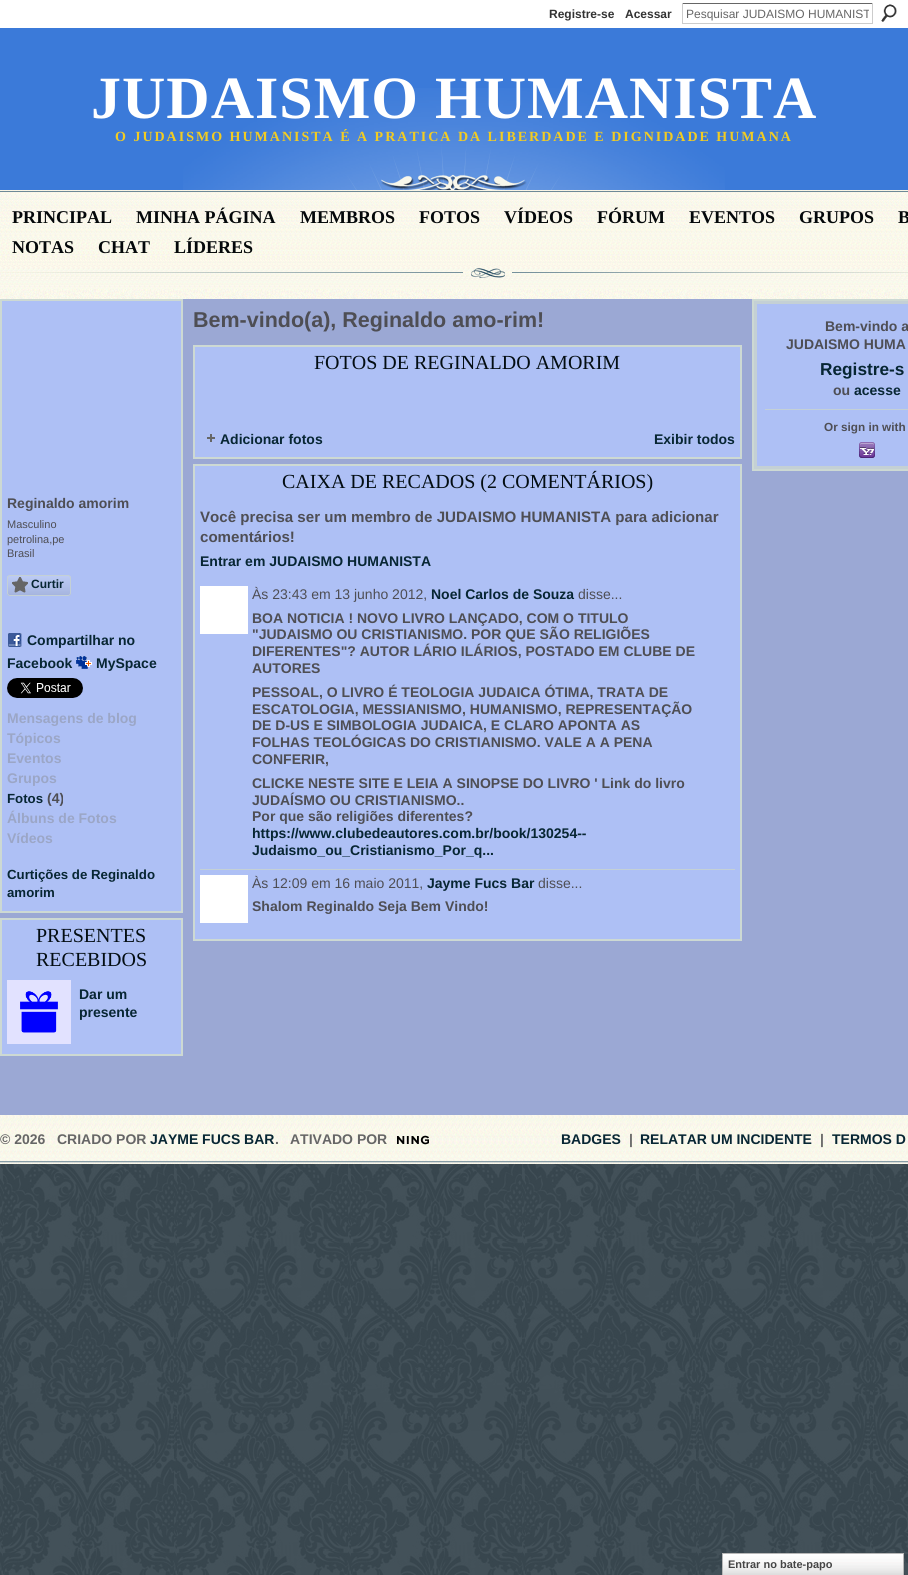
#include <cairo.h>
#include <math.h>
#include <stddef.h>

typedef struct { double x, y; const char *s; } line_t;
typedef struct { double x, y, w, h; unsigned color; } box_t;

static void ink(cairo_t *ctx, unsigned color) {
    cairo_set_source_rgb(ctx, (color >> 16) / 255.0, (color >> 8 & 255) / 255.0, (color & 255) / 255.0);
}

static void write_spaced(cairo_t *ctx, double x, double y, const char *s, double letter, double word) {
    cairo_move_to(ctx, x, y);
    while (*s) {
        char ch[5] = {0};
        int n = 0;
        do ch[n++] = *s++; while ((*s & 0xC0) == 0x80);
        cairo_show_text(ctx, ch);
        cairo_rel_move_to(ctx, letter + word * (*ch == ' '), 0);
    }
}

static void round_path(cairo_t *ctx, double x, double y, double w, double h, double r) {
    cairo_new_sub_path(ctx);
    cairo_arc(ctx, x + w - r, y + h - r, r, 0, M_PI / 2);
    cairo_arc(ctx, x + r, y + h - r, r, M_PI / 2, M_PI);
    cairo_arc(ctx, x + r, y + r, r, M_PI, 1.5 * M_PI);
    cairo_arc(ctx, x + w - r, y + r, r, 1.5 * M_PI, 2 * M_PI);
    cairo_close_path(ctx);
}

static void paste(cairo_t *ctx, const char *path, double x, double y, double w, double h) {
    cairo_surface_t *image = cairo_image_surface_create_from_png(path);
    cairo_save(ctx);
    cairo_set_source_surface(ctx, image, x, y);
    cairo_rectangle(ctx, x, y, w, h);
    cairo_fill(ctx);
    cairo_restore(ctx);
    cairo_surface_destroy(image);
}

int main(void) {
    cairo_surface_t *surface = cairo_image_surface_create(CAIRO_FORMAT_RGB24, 908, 1575);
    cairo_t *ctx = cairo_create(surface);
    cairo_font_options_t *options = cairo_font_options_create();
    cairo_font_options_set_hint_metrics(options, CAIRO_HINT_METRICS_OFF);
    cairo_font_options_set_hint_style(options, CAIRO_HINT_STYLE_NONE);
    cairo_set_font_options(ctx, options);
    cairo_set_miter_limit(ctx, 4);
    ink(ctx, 0x42525C);
    cairo_paint(ctx);
    paste(ctx, "media/1.png", 0, 1164, 908, 411);
    ink(ctx, 0xFFFFFF);
    cairo_rectangle(ctx, 0, 0, 908, 28);
    cairo_fill(ctx);
    cairo_select_font_face(ctx, "Liberation Sans", CAIRO_FONT_SLANT_NORMAL, CAIRO_FONT_WEIGHT_BOLD);
    cairo_set_font_size(ctx, 12);
    ink(ctx, 0x333333);
    cairo_move_to(ctx, 549, 18);
    cairo_show_text(ctx, "Registre-se");
    cairo_move_to(ctx, 625, 18);
    cairo_show_text(ctx, "Acessar");
    {
        static const box_t items[] = {
            {682, 3, 191, 1, 0x666666},
            {872, 3, 1, 21, 0xCCCCCC},
            {682, 23, 191, 1, 0xCCCCCC},
            {682, 3, 1, 21, 0xCCCCCC},
        };
        for (size_t i = 0; i < sizeof items / sizeof *items; i++) {
            ink(ctx, items[i].color);
            cairo_rectangle(ctx, items[i].x, items[i].y, items[i].w, items[i].h);
            cairo_fill(ctx);
        }
    }
    cairo_save(ctx);
    cairo_rectangle(ctx, 686, 7, 183, 14);
    cairo_clip(ctx);
    cairo_select_font_face(ctx, "Liberation Sans", CAIRO_FONT_SLANT_NORMAL, CAIRO_FONT_WEIGHT_NORMAL);
    ink(ctx, 0x666666);
    cairo_move_to(ctx, 686, 18);
    cairo_show_text(ctx, "Pesquisar JUDAISMO HUMANIST");
    cairo_restore(ctx);
    paste(ctx, "media/2.png", 881, 4, 16, 18);
    ink(ctx, 0x3B7AD9);
    cairo_rectangle(ctx, 0, 28, 908, 162);
    cairo_fill(ctx);
    paste(ctx, "media/3.png", 183, 88, 542, 102);
    paste(ctx, "media/4.png", 381, 174, 146, 16);
    cairo_select_font_face(ctx, "Liberation Serif", CAIRO_FONT_SLANT_NORMAL, CAIRO_FONT_WEIGHT_BOLD);
    cairo_set_font_size(ctx, 60);
    ink(ctx, 0xFFFFFF);
    write_spaced(ctx, 91, 118, "JUDAISMO HUMANISTA", 1, 0);
    cairo_set_font_size(ctx, 14);
    ink(ctx, 0xF2CC22);
    write_spaced(ctx, 115, 141, "O JUDAISMO HUMANISTA É A PRATICA DA LIBERDADE E DIGNIDADE HUMANA", 2, 0);
    paste(ctx, "media/5.png", 0, 190, 908, 99);
    paste(ctx, "media/6.png", 0, 268, 908, 10);
    cairo_set_font_size(ctx, 18);
    ink(ctx, 0x04080A);
    {
        static const line_t items[] = {
            {12, 223, "PRINCIPAL"},
            {136, 223, "MINHA PÁGINA"},
            {300, 223, "MEMBROS"},
            {419, 223, "FOTOS"},
            {504, 223, "VÍDEOS"},
            {597, 223, "FÓRUM"},
            {689, 223, "EVENTOS"},
            {799, 223, "GRUPOS"},
            {898, 223, "B"},
            {12, 253, "NOTAS"},
            {98, 253, "CHAT"},
            {174, 253, "LÍDERES"},
        };
        for (size_t i = 0; i < sizeof items / sizeof *items; i++) {
            cairo_move_to(ctx, items[i].x, items[i].y);
            cairo_show_text(ctx, items[i].s);
        }
    }
    paste(ctx, "media/7.png", 0, 289, 908, 10);
    ink(ctx, 0x9BA8D4);
    cairo_rectangle(ctx, 0, 299, 908, 816);
    cairo_fill(ctx);
    ink(ctx, 0xAEC0F5);
    cairo_rectangle(ctx, 1, 300, 181, 612);
    cairo_fill_preserve(ctx);
    ink(ctx, 0xCDD9D3);
    cairo_stroke(ctx);
    cairo_select_font_face(ctx, "Liberation Sans", CAIRO_FONT_SLANT_NORMAL, CAIRO_FONT_WEIGHT_BOLD);
    cairo_set_font_size(ctx, 14);
    ink(ctx, 0x4E4E54);
    cairo_move_to(ctx, 7, 508);
    cairo_show_text(ctx, "Reginaldo amorim");
    cairo_select_font_face(ctx, "Liberation Sans", CAIRO_FONT_SLANT_NORMAL, CAIRO_FONT_WEIGHT_NORMAL);
    cairo_set_font_size(ctx, 11);
    {
        static const line_t items[] = {
            {7, 528, "Masculino"},
            {7, 543, "petrolina,pe"},
            {7, 557, "Brasil"},
        };
        for (size_t i = 0; i < sizeof items / sizeof *items; i++) {
            cairo_move_to(ctx, items[i].x, items[i].y);
            cairo_show_text(ctx, items[i].s);
        }
    }
    paste(ctx, "media/8.png", 7, 576, 64, 20);
    round_path(ctx, 7.5, 575.5, 63, 20, 2.5);
    ink(ctx, 0xC4D0D5);
    cairo_set_line_width(ctx, 1);
    cairo_stroke(ctx);
    paste(ctx, "media/9.png", 12, 577, 16, 16);
    cairo_select_font_face(ctx, "Liberation Sans", CAIRO_FONT_SLANT_NORMAL, CAIRO_FONT_WEIGHT_BOLD);
    cairo_set_font_size(ctx, 12);
    ink(ctx, 0x072633);
    cairo_move_to(ctx, 31, 588);
    cairo_show_text(ctx, "Curtir");
    paste(ctx, "media/10.png", 8, 633, 14, 14);
    cairo_set_font_size(ctx, 14);
    cairo_move_to(ctx, 27, 645);
    cairo_show_text(ctx, "Compartilhar no");
    cairo_move_to(ctx, 7, 668);
    cairo_show_text(ctx, "Facebook");
    paste(ctx, "media/11.png", 76, 656, 16, 13);
    cairo_move_to(ctx, 96, 668);
    cairo_show_text(ctx, "MySpace");
    paste(ctx, "media/12.png", 7, 678, 76, 20);
    ink(ctx, 0x9BA6C6);
    {
        static const line_t items[] = {
            {7, 723, "Mensagens de blog"},
            {7, 743, "Tópicos"},
            {7, 763, "Eventos"},
            {7, 783, "Grupos"},
        };
        for (size_t i = 0; i < sizeof items / sizeof *items; i++) {
            cairo_move_to(ctx, items[i].x, items[i].y);
            cairo_show_text(ctx, items[i].s);
        }
    }
    cairo_set_font_size(ctx, 13.25);
    ink(ctx, 0x072633);
    cairo_move_to(ctx, 7, 803);
    cairo_show_text(ctx, "Fotos");
    cairo_set_font_size(ctx, 14);
    ink(ctx, 0x4E4E54);
    cairo_move_to(ctx, 47, 803);
    cairo_show_text(ctx, "(4)");
    ink(ctx, 0x9BA6C6);
    cairo_move_to(ctx, 7, 823);
    cairo_show_text(ctx, "Álbuns de Fotos");
    cairo_move_to(ctx, 7, 843);
    cairo_show_text(ctx, "Vídeos");
    cairo_set_font_size(ctx, 13.25);
    ink(ctx, 0x072633);
    cairo_move_to(ctx, 7, 879);
    cairo_show_text(ctx, "Curtições de Reginaldo");
    cairo_move_to(ctx, 7, 897);
    cairo_show_text(ctx, "amorim");
    ink(ctx, 0xAEC0F5);
    cairo_rectangle(ctx, 1, 919, 181, 136);
    cairo_fill_preserve(ctx);
    ink(ctx, 0xCDD9D3);
    cairo_set_line_width(ctx, 2);
    cairo_stroke(ctx);
    cairo_select_font_face(ctx, "Liberation Serif", CAIRO_FONT_SLANT_NORMAL, CAIRO_FONT_WEIGHT_NORMAL);
    cairo_set_font_size(ctx, 20);
    ink(ctx, 0x030D12);
    cairo_move_to(ctx, 36, 942);
    cairo_show_text(ctx, "PRESENTES");
    cairo_move_to(ctx, 36, 966);
    cairo_show_text(ctx, "RECEBIDOS");
    paste(ctx, "media/13.png", 7, 980, 64, 64);
    cairo_select_font_face(ctx, "Liberation Sans", CAIRO_FONT_SLANT_NORMAL, CAIRO_FONT_WEIGHT_BOLD);
    cairo_set_font_size(ctx, 14);
    ink(ctx, 0x072633);
    cairo_move_to(ctx, 79, 999);
    cairo_show_text(ctx, "Dar um");
    cairo_move_to(ctx, 79, 1017);
    cairo_show_text(ctx, "presente");
    cairo_set_font_size(ctx, 21.5);
    ink(ctx, 0x4E4E54);
    cairo_move_to(ctx, 193, 327);
    cairo_show_text(ctx, "Bem-vindo(a), Reginaldo amo-rim!");
    ink(ctx, 0xAEC0F5);
    cairo_rectangle(ctx, 194, 346, 547, 112);
    cairo_fill_preserve(ctx);
    ink(ctx, 0xCDD9D3);
    cairo_stroke(ctx);
    cairo_select_font_face(ctx, "Liberation Serif", CAIRO_FONT_SLANT_NORMAL, CAIRO_FONT_WEIGHT_NORMAL);
    cairo_set_font_size(ctx, 20);
    ink(ctx, 0x030D12);
    cairo_move_to(ctx, 314, 369);
    cairo_show_text(ctx, "FOTOS DE REGINALDO AMORIM");
    paste(ctx, "media/14.png", 207, 434, 8, 8);
    cairo_select_font_face(ctx, "Liberation Sans", CAIRO_FONT_SLANT_NORMAL, CAIRO_FONT_WEIGHT_BOLD);
    cairo_set_font_size(ctx, 14);
    ink(ctx, 0x072633);
    cairo_move_to(ctx, 220, 444);
    cairo_show_text(ctx, "Adicionar fotos");
    cairo_move_to(ctx, 654, 444);
    cairo_show_text(ctx, "Exibir todos");
    ink(ctx, 0xAEC0F5);
    cairo_rectangle(ctx, 194, 465, 547, 475);
    cairo_fill_preserve(ctx);
    ink(ctx, 0xCDD9D3);
    cairo_stroke(ctx);
    cairo_select_font_face(ctx, "Liberation Serif", CAIRO_FONT_SLANT_NORMAL, CAIRO_FONT_WEIGHT_NORMAL);
    cairo_set_font_size(ctx, 20);
    ink(ctx, 0x030D12);
    cairo_move_to(ctx, 282, 488);
    cairo_show_text(ctx, "CAIXA DE RECADOS (2 COMENTÁRIOS)");
    cairo_select_font_face(ctx, "Liberation Sans", CAIRO_FONT_SLANT_NORMAL, CAIRO_FONT_WEIGHT_BOLD);
    cairo_set_font_size(ctx, 15.1);
    ink(ctx, 0x4E4E54);
    cairo_move_to(ctx, 200, 522);
    cairo_show_text(ctx, "Você precisa ser um membro de JUDAISMO HUMANISTA para adicionar");
    cairo_move_to(ctx, 200, 542);
    cairo_show_text(ctx, "comentários!");
    cairo_set_font_size(ctx, 14);
    ink(ctx, 0x072633);
    cairo_move_to(ctx, 200, 566);
    cairo_show_text(ctx, "Entrar em JUDAISMO HUMANISTA");
    ink(ctx, 0xC4D0D5);
    cairo_rectangle(ctx, 200, 869, 535, 1);
    cairo_fill(ctx);
    cairo_select_font_face(ctx, "Liberation Sans", CAIRO_FONT_SLANT_NORMAL, CAIRO_FONT_WEIGHT_NORMAL);
    ink(ctx, 0x4E4E54);
    cairo_move_to(ctx, 252, 599);
    cairo_show_text(ctx, "Às 23:43 em 13 junho 2012,");
    ink(ctx, 0xFFFFFF);
    cairo_rectangle(ctx, 200, 586, 48, 48);
    cairo_fill(ctx);
    cairo_select_font_face(ctx, "Liberation Sans", CAIRO_FONT_SLANT_NORMAL, CAIRO_FONT_WEIGHT_BOLD);
    ink(ctx, 0x072633);
    cairo_move_to(ctx, 431, 599);
    cairo_show_text(ctx, "Noel Carlos de Souza");
    cairo_select_font_face(ctx, "Liberation Sans", CAIRO_FONT_SLANT_NORMAL, CAIRO_FONT_WEIGHT_NORMAL);
    ink(ctx, 0x4E4E54);
    cairo_move_to(ctx, 578, 599);
    cairo_show_text(ctx, "disse...");
    cairo_select_font_face(ctx, "Liberation Sans", CAIRO_FONT_SLANT_NORMAL, CAIRO_FONT_WEIGHT_BOLD);
    {
        static const line_t items[] = {
            {252, 623, "BOA NOTICIA ! NOVO LIVRO LANÇADO, COM O TITULO"},
            {252, 639, "\"JUDAISMO OU CRISTIANISMO. POR QUE SÃO RELIGIÕES"},
            {252, 656, "DIFERENTES\"? AUTOR LÁRIO ILÁRIOS, POSTADO EM CLUBE DE"},
            {252, 673, "AUTORES"},
            {252, 697, "PESSOAL, O LIVRO É TEOLOGIA JUDAICA ÓTIMA, TRATA DE"},
            {252, 714, "ESCATOLOGIA, MESSIANISMO, HUMANISMO, REPRESENTAÇÃO"},
            {252, 730, "DE D-US E SIMBOLOGIA JUDAICA, E CLARO APONTA AS"},
            {252, 747, "FOLHAS TEOLÓGICAS DO CRISTIANISMO. VALE A A PENA"},
            {252, 764, "CONFERIR,"},
            {252, 788, "CLICKE NESTE SITE E LEIA A SINOPSE DO LIVRO ' Link do livro"},
            {252, 805, "JUDAÍSMO OU CRISTIANISMO.."},
            {252, 821, "Por que são religiões diferentes?"},
        };
        for (size_t i = 0; i < sizeof items / sizeof *items; i++) {
            cairo_move_to(ctx, items[i].x, items[i].y);
            cairo_show_text(ctx, items[i].s);
        }
    }
    ink(ctx, 0x072633);
    cairo_move_to(ctx, 252, 838);
    cairo_show_text(ctx, "https://www.clubedeautores.com.br/book/130254--");
    cairo_move_to(ctx, 252, 855);
    cairo_show_text(ctx, "Judaismo_ou_Cristianismo_Por_q...");
    cairo_select_font_face(ctx, "Liberation Sans", CAIRO_FONT_SLANT_NORMAL, CAIRO_FONT_WEIGHT_NORMAL);
    ink(ctx, 0x4E4E54);
    cairo_move_to(ctx, 252, 888);
    cairo_show_text(ctx, "Às 12:09 em 16 maio 2011,");
    ink(ctx, 0xFFFFFF);
    cairo_rectangle(ctx, 200, 875, 48, 48);
    cairo_fill(ctx);
    cairo_select_font_face(ctx, "Liberation Sans", CAIRO_FONT_SLANT_NORMAL, CAIRO_FONT_WEIGHT_BOLD);
    ink(ctx, 0x072633);
    cairo_move_to(ctx, 427, 888);
    cairo_show_text(ctx, "Jayme Fucs Bar");
    cairo_select_font_face(ctx, "Liberation Sans", CAIRO_FONT_SLANT_NORMAL, CAIRO_FONT_WEIGHT_NORMAL);
    ink(ctx, 0x4E4E54);
    cairo_move_to(ctx, 538, 888);
    cairo_show_text(ctx, "disse...");
    cairo_select_font_face(ctx, "Liberation Sans", CAIRO_FONT_SLANT_NORMAL, CAIRO_FONT_WEIGHT_BOLD);
    cairo_move_to(ctx, 252, 911);
    cairo_show_text(ctx, "Shalom Reginaldo Seja Bem Vindo!");
    ink(ctx, 0xAEC0F5);
    cairo_rectangle(ctx, 757, 304, 151, 162);
    cairo_fill(ctx);
    cairo_rectangle(ctx, 753, 300, 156, 170);
    ink(ctx, 0xCDD9D3);
    cairo_stroke(ctx);
    cairo_rectangle(ctx, 755.5, 302.5, 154, 165);
    ink(ctx, 0xC4D0D5);
    cairo_set_line_width(ctx, 3);
    cairo_stroke(ctx);
    ink(ctx, 0x4E4E54);
    cairo_move_to(ctx, 825, 331);
    cairo_show_text(ctx, "Bem-vindo a");
    cairo_move_to(ctx, 786, 349);
    cairo_show_text(ctx, "JUDAISMO HUMA");
    cairo_set_font_size(ctx, 17.25);
    ink(ctx, 0x072633);
    cairo_move_to(ctx, 820, 375);
    cairo_show_text(ctx, "Registre-s");
    cairo_set_font_size(ctx, 14);
    ink(ctx, 0x4E4E54);
    cairo_move_to(ctx, 833, 395);
    cairo_show_text(ctx, "ou");
    ink(ctx, 0x072633);
    cairo_move_to(ctx, 854, 395);
    cairo_show_text(ctx, "acesse");
    ink(ctx, 0xC4D0D5);
    cairo_rectangle(ctx, 765, 409, 143, 1);
    cairo_fill(ctx);
    cairo_set_font_size(ctx, 11.75);
    ink(ctx, 0x4E4E54);
    cairo_move_to(ctx, 824, 431);
    cairo_show_text(ctx, "Or sign in with");
    paste(ctx, "media/15.png", 859, 442, 16, 16);
    paste(ctx, "media/16.png", 0, 1115, 908, 49);
    cairo_set_font_size(ctx, 14);
    ink(ctx, 0x666666);
    cairo_move_to(ctx, 0, 1144);
    cairo_show_text(ctx, "© 2026");
    cairo_move_to(ctx, 57, 1144);
    cairo_show_text(ctx, "CRIADO POR");
    ink(ctx, 0x072633);
    cairo_move_to(ctx, 150, 1144);
    cairo_show_text(ctx, "JAYME FUCS BAR");
    ink(ctx, 0x666666);
    cairo_move_to(ctx, 275, 1144);
    cairo_show_text(ctx, ".");
    cairo_move_to(ctx, 290, 1144);
    cairo_show_text(ctx, "ATIVADO POR");
    paste(ctx, "media/17.png", 397, 1135, 32, 10);
    ink(ctx, 0x072633);
    cairo_move_to(ctx, 561, 1144);
    cairo_show_text(ctx, "BADGES");
    ink(ctx, 0x666666);
    cairo_move_to(ctx, 629, 1144);
    cairo_show_text(ctx, "|");
    ink(ctx, 0x072633);
    cairo_move_to(ctx, 640, 1144);
    cairo_show_text(ctx, "RELATAR UM INCIDENTE");
    ink(ctx, 0x666666);
    cairo_move_to(ctx, 820, 1144);
    cairo_show_text(ctx, "|");
    ink(ctx, 0x072633);
    cairo_move_to(ctx, 832, 1144);
    cairo_show_text(ctx, "TERMOS D");
    paste(ctx, "media/18.png", 723, 1554, 180, 21);
    cairo_rectangle(ctx, 722.5, 1553.5, 181, 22);
    ink(ctx, 0xB7B7B7);
    cairo_set_line_width(ctx, 1);
    cairo_stroke(ctx);
    cairo_set_font_size(ctx, 11);
    ink(ctx, 0x454545);
    cairo_move_to(ctx, 728, 1568);
    cairo_show_text(ctx, "Entrar no bate-papo");
    cairo_surface_write_to_png(surface, "image.png");
    cairo_font_options_destroy(options);
    cairo_destroy(ctx);
    cairo_surface_destroy(surface);
    return 0;
}
